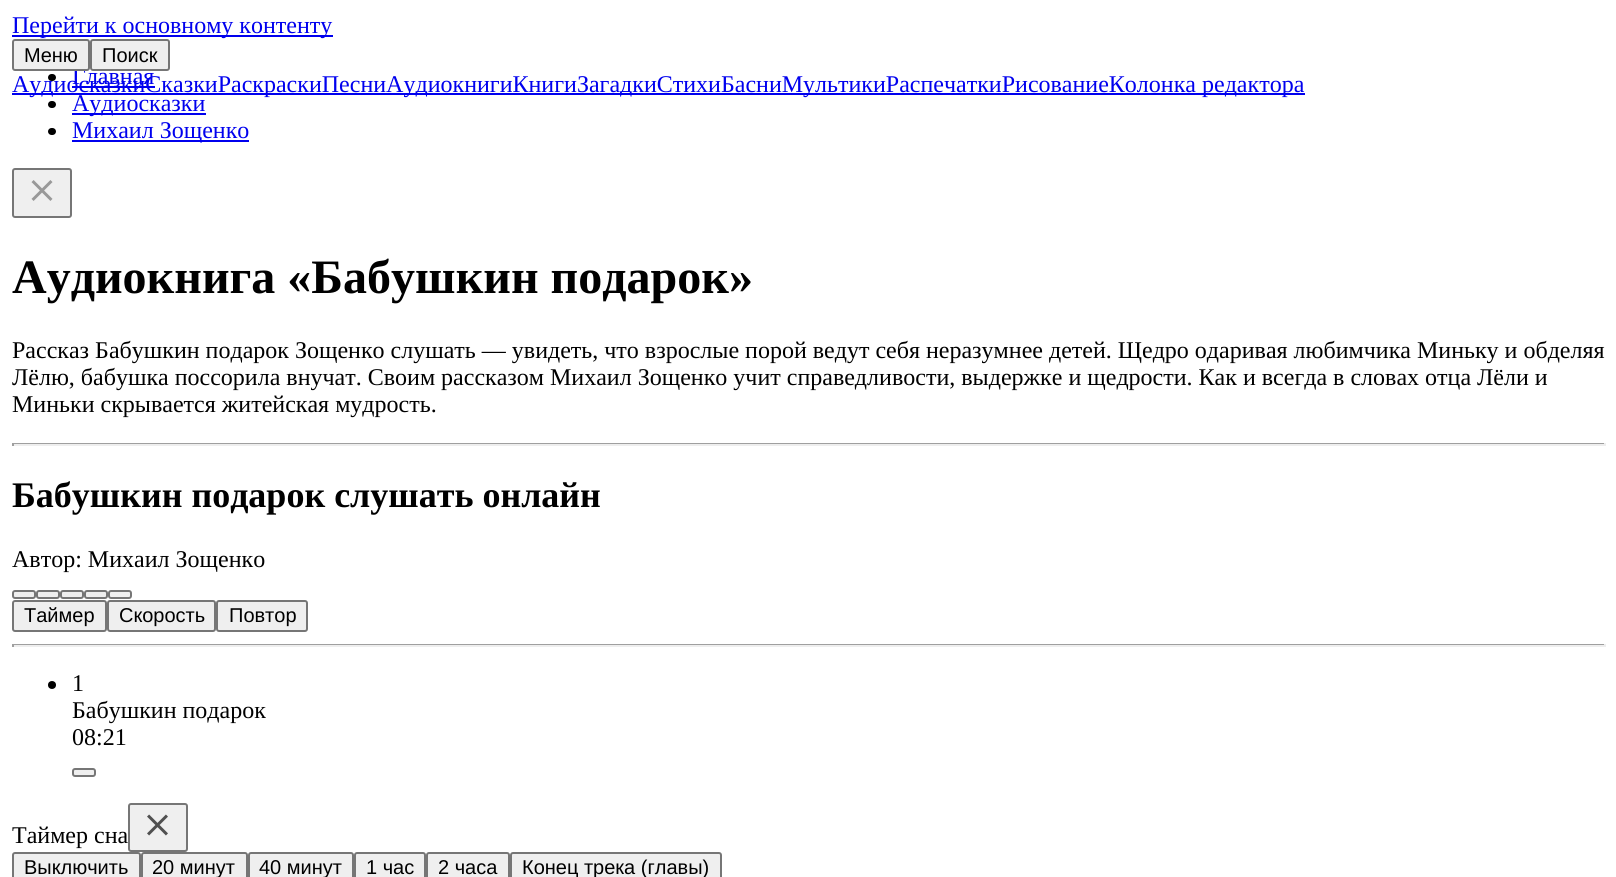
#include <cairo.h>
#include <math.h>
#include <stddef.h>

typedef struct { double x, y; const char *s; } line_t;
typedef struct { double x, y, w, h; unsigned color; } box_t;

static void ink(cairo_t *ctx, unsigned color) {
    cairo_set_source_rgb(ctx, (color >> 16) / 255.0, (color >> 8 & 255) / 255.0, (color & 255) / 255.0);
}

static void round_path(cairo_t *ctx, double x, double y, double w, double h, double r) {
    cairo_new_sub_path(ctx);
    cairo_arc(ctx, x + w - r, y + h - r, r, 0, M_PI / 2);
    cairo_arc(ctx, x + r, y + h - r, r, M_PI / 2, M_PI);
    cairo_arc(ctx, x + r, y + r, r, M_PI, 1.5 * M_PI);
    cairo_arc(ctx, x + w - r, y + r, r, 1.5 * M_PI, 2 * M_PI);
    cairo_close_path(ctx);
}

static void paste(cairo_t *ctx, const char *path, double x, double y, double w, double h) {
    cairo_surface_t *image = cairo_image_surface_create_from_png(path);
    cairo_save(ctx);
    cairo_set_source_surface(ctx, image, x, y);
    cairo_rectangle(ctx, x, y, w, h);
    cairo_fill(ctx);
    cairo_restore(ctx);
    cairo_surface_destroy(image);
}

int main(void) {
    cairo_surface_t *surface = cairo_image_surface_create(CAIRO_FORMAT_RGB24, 1616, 877);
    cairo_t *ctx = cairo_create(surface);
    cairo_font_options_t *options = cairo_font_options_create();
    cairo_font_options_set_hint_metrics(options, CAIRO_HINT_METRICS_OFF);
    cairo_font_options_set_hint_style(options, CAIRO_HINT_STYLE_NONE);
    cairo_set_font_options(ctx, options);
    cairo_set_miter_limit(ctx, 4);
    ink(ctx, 0xFFFFFF);
    cairo_paint(ctx);
    ink(ctx, 0x0000EE);
    cairo_rectangle(ctx, 12, 35, 321, 2);
    cairo_fill(ctx);
    cairo_select_font_face(ctx, "Liberation Serif", CAIRO_FONT_SLANT_NORMAL, CAIRO_FONT_WEIGHT_NORMAL);
    cairo_set_font_size(ctx, 24);
    cairo_move_to(ctx, 12, 33);
    cairo_show_text(ctx, "Перейти к основному контенту");
    cairo_move_to(ctx, 72, 84);
    cairo_show_text(ctx, "Главная");
    ink(ctx, 0xEFEFEF);
    round_path(ctx, 13, 40, 76, 30, 2);
    cairo_fill_preserve(ctx);
    ink(ctx, 0x767676);
    cairo_stroke(ctx);
    cairo_select_font_face(ctx, "Liberation Sans", CAIRO_FONT_SLANT_NORMAL, CAIRO_FONT_WEIGHT_NORMAL);
    cairo_set_font_size(ctx, 20);
    ink(ctx, 0x000000);
    cairo_move_to(ctx, 24, 62);
    cairo_show_text(ctx, "Меню");
    ink(ctx, 0xEFEFEF);
    round_path(ctx, 91, 40, 78, 30, 2);
    cairo_fill_preserve(ctx);
    ink(ctx, 0x767676);
    cairo_stroke(ctx);
    ink(ctx, 0x000000);
    cairo_move_to(ctx, 102, 62);
    cairo_show_text(ctx, "Поиск");
    ink(ctx, 0x0000EE);
    cairo_rectangle(ctx, 12, 93, 1293, 2);
    cairo_fill(ctx);
    ink(ctx, 0x000000);
    round_path(ctx, 48, 74, 8, 7, 3.5);
    cairo_fill(ctx);
    ink(ctx, 0x0000EE);
    cairo_rectangle(ctx, 72, 86, 83, 2);
    cairo_fill(ctx);
    cairo_select_font_face(ctx, "Liberation Serif", CAIRO_FONT_SLANT_NORMAL, CAIRO_FONT_WEIGHT_NORMAL);
    cairo_set_font_size(ctx, 24);
    cairo_move_to(ctx, 12, 92);
    cairo_show_text(ctx, "АудиосказкиСказкиРаскраскиПесниАудиокнигиКнигиЗагадкиСтихиБасниМультикиРаспечаткиРисованиеКолонка редактора");
    ink(ctx, 0x000000);
    round_path(ctx, 48, 101, 8, 7, 3.5);
    cairo_fill(ctx);
    ink(ctx, 0x0000EE);
    cairo_rectangle(ctx, 72, 113, 134, 2);
    cairo_fill(ctx);
    cairo_move_to(ctx, 72, 111);
    cairo_show_text(ctx, "Аудиосказки");
    ink(ctx, 0x000000);
    round_path(ctx, 48, 128, 8, 7, 3.5);
    cairo_fill(ctx);
    ink(ctx, 0x0000EE);
    cairo_rectangle(ctx, 72, 140, 177, 2);
    cairo_fill(ctx);
    cairo_move_to(ctx, 72, 138);
    cairo_show_text(ctx, "Михаил Зощенко");
    ink(ctx, 0xEFEFEF);
    round_path(ctx, 13, 169, 58, 48, 2);
    cairo_fill_preserve(ctx);
    ink(ctx, 0x767676);
    cairo_stroke(ctx);
    paste(ctx, "media/1.png", 31, 180, 22, 21);
    cairo_select_font_face(ctx, "Liberation Serif", CAIRO_FONT_SLANT_NORMAL, CAIRO_FONT_WEIGHT_BOLD);
    cairo_set_font_size(ctx, 48);
    ink(ctx, 0x000000);
    cairo_move_to(ctx, 12, 293);
    cairo_show_text(ctx, "Аудиокнига «Бабушкин подарок»");
    cairo_select_font_face(ctx, "Liberation Serif", CAIRO_FONT_SLANT_NORMAL, CAIRO_FONT_WEIGHT_NORMAL);
    cairo_set_font_size(ctx, 24);
    {
        static const line_t items[] = {
            {12, 358, "Рассказ Бабушкин подарок Зощенко слушать — увидеть, что взрослые порой ведут себя неразумнее детей. Щедро одаривая любимчика Миньку и обделяя"},
            {12, 385, "Лёлю, бабушка поссорила внучат. Своим рассказом Михаил Зощенко учит справедливости, выдержке и щедрости. Как и всегда в словах отца Лёли и"},
            {12, 412, "Миньки скрывается житейская мудрость."},
        };
        for (size_t i = 0; i < sizeof items / sizeof *items; i++) {
            cairo_move_to(ctx, items[i].x, items[i].y);
            cairo_show_text(ctx, items[i].s);
        }
    }
    {
        static const box_t items[] = {
            {12, 443, 1593, 1, 0x9F9F9F},
            {1604, 443, 2, 3, 0xEEEEEE},
            {12, 444, 1593, 2, 0xEEEEEE},
            {12, 443, 2, 3, 0x9F9F9F},
        };
        for (size_t i = 0; i < sizeof items / sizeof *items; i++) {
            ink(ctx, items[i].color);
            cairo_rectangle(ctx, items[i].x, items[i].y, items[i].w, items[i].h);
            cairo_fill(ctx);
        }
    }
    cairo_select_font_face(ctx, "Liberation Serif", CAIRO_FONT_SLANT_NORMAL, CAIRO_FONT_WEIGHT_BOLD);
    cairo_set_font_size(ctx, 36);
    ink(ctx, 0x000000);
    cairo_move_to(ctx, 12, 507);
    cairo_show_text(ctx, "Бабушкин подарок слушать онлайн");
    cairo_select_font_face(ctx, "Liberation Serif", CAIRO_FONT_SLANT_NORMAL, CAIRO_FONT_WEIGHT_NORMAL);
    cairo_set_font_size(ctx, 24);
    cairo_move_to(ctx, 12, 567);
    cairo_show_text(ctx, "Автор: Михаил Зощенко");
    ink(ctx, 0xEFEFEF);
    round_path(ctx, 13, 591, 22, 7, 2);
    cairo_fill_preserve(ctx);
    ink(ctx, 0x767676);
    cairo_stroke(ctx);
    ink(ctx, 0xEFEFEF);
    round_path(ctx, 37, 591, 22, 7, 2);
    cairo_fill_preserve(ctx);
    ink(ctx, 0x767676);
    cairo_stroke(ctx);
    ink(ctx, 0xEFEFEF);
    round_path(ctx, 61, 591, 22, 7, 2);
    cairo_fill_preserve(ctx);
    ink(ctx, 0x767676);
    cairo_stroke(ctx);
    ink(ctx, 0xEFEFEF);
    round_path(ctx, 85, 591, 22, 7, 2);
    cairo_fill_preserve(ctx);
    ink(ctx, 0x767676);
    cairo_stroke(ctx);
    ink(ctx, 0xEFEFEF);
    round_path(ctx, 109, 591, 22, 7, 2);
    cairo_fill_preserve(ctx);
    ink(ctx, 0x767676);
    cairo_stroke(ctx);
    ink(ctx, 0xEFEFEF);
    round_path(ctx, 13, 601, 93, 30, 2);
    cairo_fill_preserve(ctx);
    ink(ctx, 0x767676);
    cairo_stroke(ctx);
    cairo_select_font_face(ctx, "Liberation Sans", CAIRO_FONT_SLANT_NORMAL, CAIRO_FONT_WEIGHT_NORMAL);
    cairo_set_font_size(ctx, 20);
    ink(ctx, 0x000000);
    cairo_move_to(ctx, 24, 622);
    cairo_show_text(ctx, "Таймер");
    ink(ctx, 0xEFEFEF);
    round_path(ctx, 108, 601, 107, 30, 2);
    cairo_fill_preserve(ctx);
    ink(ctx, 0x767676);
    cairo_stroke(ctx);
    ink(ctx, 0x000000);
    cairo_move_to(ctx, 119, 622);
    cairo_show_text(ctx, "Скорость");
    ink(ctx, 0xEFEFEF);
    round_path(ctx, 217, 601, 90, 30, 2);
    cairo_fill_preserve(ctx);
    ink(ctx, 0x767676);
    cairo_stroke(ctx);
    ink(ctx, 0x000000);
    cairo_move_to(ctx, 229, 622);
    cairo_show_text(ctx, "Повтор");
    {
        static const box_t items[] = {
            {12, 644, 1593, 1, 0x9F9F9F},
            {1604, 644, 2, 3, 0xEEEEEE},
            {12, 645, 1593, 2, 0xEEEEEE},
            {12, 644, 2, 3, 0x9F9F9F},
        };
        for (size_t i = 0; i < sizeof items / sizeof *items; i++) {
            ink(ctx, items[i].color);
            cairo_rectangle(ctx, items[i].x, items[i].y, items[i].w, items[i].h);
            cairo_fill(ctx);
        }
    }
    ink(ctx, 0x000000);
    cairo_new_path(ctx);
    cairo_arc(ctx, 52, 685, 4, 0, 2 * M_PI);
    cairo_fill(ctx);
    cairo_select_font_face(ctx, "Liberation Serif", CAIRO_FONT_SLANT_NORMAL, CAIRO_FONT_WEIGHT_NORMAL);
    cairo_set_font_size(ctx, 24);
    {
        static const line_t items[] = {
            {72, 691, "1"},
            {72, 718, "Бабушкин подарок"},
            {72, 745, "08:21"},
        };
        for (size_t i = 0; i < sizeof items / sizeof *items; i++) {
            cairo_move_to(ctx, items[i].x, items[i].y);
            cairo_show_text(ctx, items[i].s);
        }
    }
    ink(ctx, 0xEFEFEF);
    round_path(ctx, 73, 769, 22, 7, 2);
    cairo_fill_preserve(ctx);
    ink(ctx, 0x767676);
    cairo_stroke(ctx);
    ink(ctx, 0x000000);
    cairo_move_to(ctx, 12, 843);
    cairo_show_text(ctx, "Таймер сна");
    ink(ctx, 0xEFEFEF);
    round_path(ctx, 129, 804, 58, 47, 2);
    cairo_fill_preserve(ctx);
    ink(ctx, 0x767676);
    cairo_stroke(ctx);
    paste(ctx, "media/2.png", 147, 814, 21, 22);
    ink(ctx, 0xEFEFEF);
    round_path(ctx, 13, 853, 127, 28, 2);
    cairo_fill_preserve(ctx);
    ink(ctx, 0x767676);
    cairo_stroke(ctx);
    cairo_select_font_face(ctx, "Liberation Sans", CAIRO_FONT_SLANT_NORMAL, CAIRO_FONT_WEIGHT_NORMAL);
    cairo_set_font_size(ctx, 20);
    ink(ctx, 0x000000);
    cairo_move_to(ctx, 24, 874);
    cairo_show_text(ctx, "Выключить");
    ink(ctx, 0xEFEFEF);
    round_path(ctx, 142, 853, 105, 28, 2);
    cairo_fill_preserve(ctx);
    ink(ctx, 0x767676);
    cairo_stroke(ctx);
    ink(ctx, 0x000000);
    cairo_move_to(ctx, 152, 874);
    cairo_show_text(ctx, "20 минут");
    ink(ctx, 0xEFEFEF);
    round_path(ctx, 249, 853, 104, 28, 2);
    cairo_fill_preserve(ctx);
    ink(ctx, 0x767676);
    cairo_stroke(ctx);
    ink(ctx, 0x000000);
    cairo_move_to(ctx, 259, 874);
    cairo_show_text(ctx, "40 минут");
    ink(ctx, 0xEFEFEF);
    round_path(ctx, 355, 853, 70, 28, 2);
    cairo_fill_preserve(ctx);
    ink(ctx, 0x767676);
    cairo_stroke(ctx);
    ink(ctx, 0x000000);
    cairo_move_to(ctx, 366, 874);
    cairo_show_text(ctx, "1 час");
    ink(ctx, 0xEFEFEF);
    round_path(ctx, 427, 853, 82, 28, 2);
    cairo_fill_preserve(ctx);
    ink(ctx, 0x767676);
    cairo_stroke(ctx);
    ink(ctx, 0x000000);
    cairo_move_to(ctx, 438, 874);
    cairo_show_text(ctx, "2 часа");
    ink(ctx, 0xEFEFEF);
    round_path(ctx, 511, 853, 210, 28, 2);
    cairo_fill_preserve(ctx);
    ink(ctx, 0x767676);
    cairo_stroke(ctx);
    ink(ctx, 0x000000);
    cairo_move_to(ctx, 522, 874);
    cairo_show_text(ctx, "Конец трека (главы)");
    cairo_surface_write_to_png(surface, "image.png");
    cairo_font_options_destroy(options);
    cairo_destroy(ctx);
    cairo_surface_destroy(surface);
    return 0;
}
